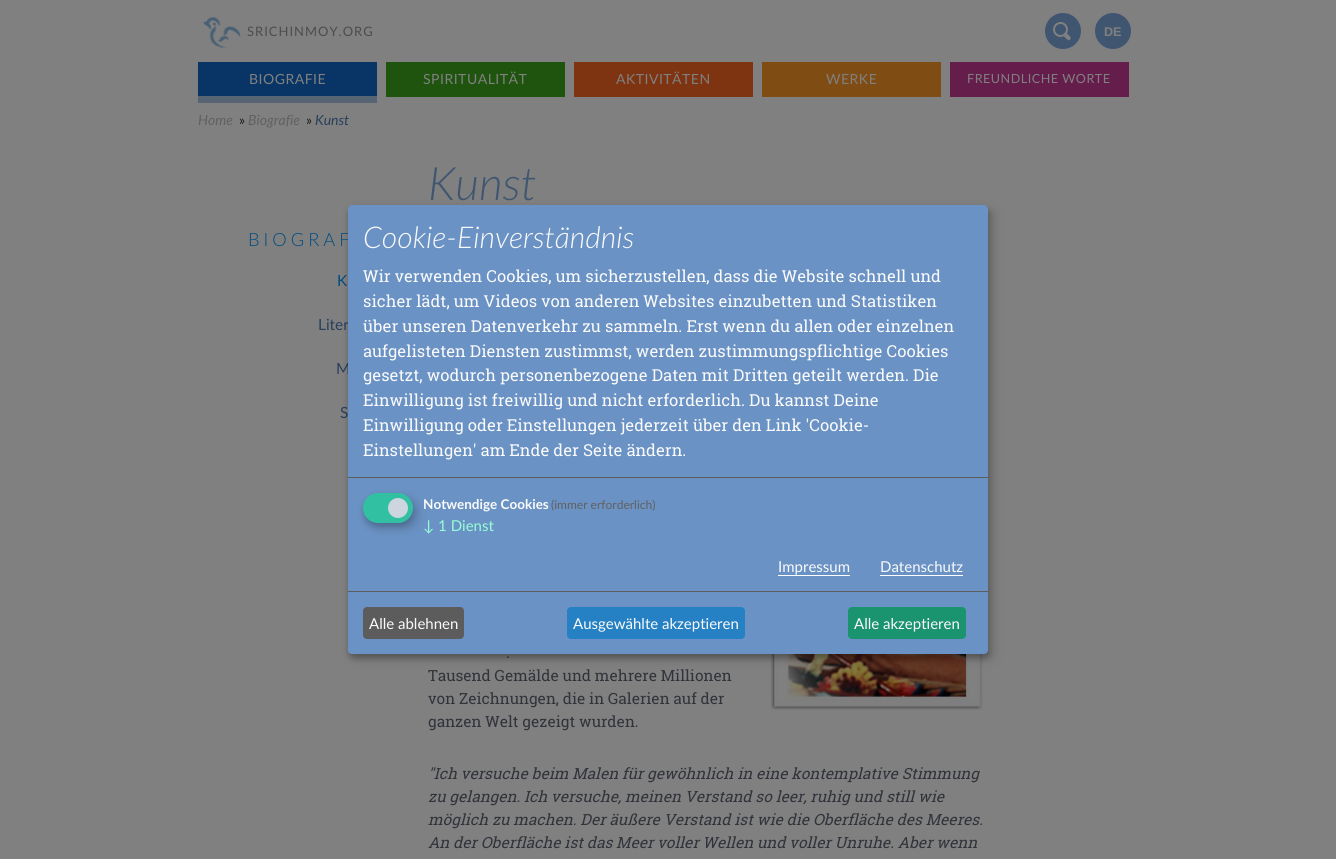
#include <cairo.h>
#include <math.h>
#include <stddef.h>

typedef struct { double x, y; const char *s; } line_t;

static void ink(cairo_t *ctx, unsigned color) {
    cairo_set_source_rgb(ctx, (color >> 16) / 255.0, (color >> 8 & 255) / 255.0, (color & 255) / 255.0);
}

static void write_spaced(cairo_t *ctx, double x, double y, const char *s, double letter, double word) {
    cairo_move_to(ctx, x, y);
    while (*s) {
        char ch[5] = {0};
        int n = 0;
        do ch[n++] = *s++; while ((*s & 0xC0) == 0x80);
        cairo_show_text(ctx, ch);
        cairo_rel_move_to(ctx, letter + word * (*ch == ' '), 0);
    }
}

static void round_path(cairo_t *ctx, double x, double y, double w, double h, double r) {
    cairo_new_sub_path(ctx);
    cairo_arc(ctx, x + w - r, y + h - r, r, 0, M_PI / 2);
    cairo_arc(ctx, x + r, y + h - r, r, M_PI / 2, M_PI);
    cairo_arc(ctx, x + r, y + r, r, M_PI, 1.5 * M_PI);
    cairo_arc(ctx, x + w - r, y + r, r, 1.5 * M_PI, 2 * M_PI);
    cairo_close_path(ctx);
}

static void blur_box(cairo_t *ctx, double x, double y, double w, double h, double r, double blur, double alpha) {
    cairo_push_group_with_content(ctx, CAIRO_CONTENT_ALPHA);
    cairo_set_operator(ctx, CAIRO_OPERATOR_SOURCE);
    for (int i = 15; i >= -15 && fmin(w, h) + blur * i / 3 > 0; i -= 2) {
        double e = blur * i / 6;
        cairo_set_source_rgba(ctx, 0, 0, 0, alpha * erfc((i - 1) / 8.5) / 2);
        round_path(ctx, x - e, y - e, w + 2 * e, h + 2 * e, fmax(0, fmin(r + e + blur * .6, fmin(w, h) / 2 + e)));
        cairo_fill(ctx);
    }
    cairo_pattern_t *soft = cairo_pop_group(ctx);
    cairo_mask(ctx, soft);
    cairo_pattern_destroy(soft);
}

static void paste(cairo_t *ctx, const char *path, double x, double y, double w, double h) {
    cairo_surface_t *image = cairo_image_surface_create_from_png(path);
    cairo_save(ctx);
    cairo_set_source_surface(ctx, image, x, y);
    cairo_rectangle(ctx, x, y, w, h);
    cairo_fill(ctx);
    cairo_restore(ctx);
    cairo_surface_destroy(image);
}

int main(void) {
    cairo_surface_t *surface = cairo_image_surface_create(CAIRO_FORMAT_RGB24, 1336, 859);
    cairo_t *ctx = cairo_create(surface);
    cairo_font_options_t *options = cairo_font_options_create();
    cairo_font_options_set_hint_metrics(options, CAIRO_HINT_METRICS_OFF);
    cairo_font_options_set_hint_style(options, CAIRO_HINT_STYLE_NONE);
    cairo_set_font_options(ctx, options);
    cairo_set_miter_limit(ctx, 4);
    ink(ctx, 0x808080);
    cairo_paint(ctx);
    paste(ctx, "media/1.png", 203, 17, 38, 32);
    cairo_select_font_face(ctx, "Lato", CAIRO_FONT_SLANT_NORMAL, CAIRO_FONT_WEIGHT_NORMAL);
    cairo_set_font_size(ctx, 13);
    ink(ctx, 0x4E4B4B);
    write_spaced(ctx, 247, 36, "SRICHINMOY.ORG", 1, 0);
    ink(ctx, 0x405670);
    cairo_new_path(ctx);
    cairo_arc(ctx, 1063, 31, 18, 0, 2 * M_PI);
    cairo_fill(ctx);
    cairo_arc(ctx, 1060.5, 29.5, 6.5, 0, 2 * M_PI);
    ink(ctx, 0x808080);
    cairo_stroke(ctx);
    cairo_new_path(ctx);
    cairo_move_to(ctx, 1064, 33.5);
    cairo_curve_to(ctx, 1065.5, 31.5, 1067.5, 34, 1068.5, 35);
    cairo_curve_to(ctx, 1069.5, 36, 1072, 38, 1070, 39.5);
    cairo_curve_to(ctx, 1068.5, 41.5, 1067, 39, 1065.5, 38);
    cairo_curve_to(ctx, 1064.5, 36.5, 1062, 35, 1064, 33.5);
    cairo_close_path(ctx);
    cairo_fill(ctx);
    ink(ctx, 0x405670);
    cairo_arc(ctx, 1113, 31, 18, 0, 2 * M_PI);
    cairo_fill(ctx);
    cairo_select_font_face(ctx, "Liberation Sans", CAIRO_FONT_SLANT_NORMAL, CAIRO_FONT_WEIGHT_BOLD);
    cairo_set_font_size(ctx, 12.6);
    ink(ctx, 0x808080);
    cairo_move_to(ctx, 1104, 36);
    cairo_show_text(ctx, "DE");
    ink(ctx, 0x083565);
    cairo_rectangle(ctx, 198, 62, 179, 34);
    cairo_fill(ctx);
    ink(ctx, 0x566474);
    cairo_rectangle(ctx, 198, 96, 179, 7);
    cairo_fill(ctx);
    cairo_select_font_face(ctx, "Lato", CAIRO_FONT_SLANT_NORMAL, CAIRO_FONT_WEIGHT_NORMAL);
    cairo_set_font_size(ctx, 14);
    ink(ctx, 0x808080);
    write_spaced(ctx, 249, 84, "BIOGRAFIE", 0.5, 0);
    ink(ctx, 0x1F540E);
    cairo_rectangle(ctx, 386, 62, 179, 35);
    cairo_fill(ctx);
    ink(ctx, 0x808080);
    write_spaced(ctx, 423, 84, "SPIRITUALITÄT", 0.5, 0);
    ink(ctx, 0x7E3311);
    cairo_rectangle(ctx, 574, 62, 179, 35);
    cairo_fill(ctx);
    ink(ctx, 0x808080);
    write_spaced(ctx, 616, 84, "AKTIVITÄTEN", 0.5, 0);
    ink(ctx, 0x7F4C14);
    cairo_rectangle(ctx, 762, 62, 179, 35);
    cairo_fill(ctx);
    ink(ctx, 0x808080);
    write_spaced(ctx, 826, 84, "WERKE", 0.5, 0);
    ink(ctx, 0x651D4C);
    cairo_rectangle(ctx, 950, 62, 179, 35);
    cairo_fill(ctx);
    cairo_set_font_size(ctx, 12.6);
    ink(ctx, 0x808080);
    write_spaced(ctx, 967, 83, "FREUNDLICHE WORTE", 0.5, 0);
    cairo_select_font_face(ctx, "Lato", CAIRO_FONT_SLANT_ITALIC, CAIRO_FONT_WEIGHT_NORMAL);
    cairo_set_font_size(ctx, 14);
    ink(ctx, 0x616060);
    cairo_move_to(ctx, 198, 125);
    cairo_show_text(ctx, "Home");
    cairo_select_font_face(ctx, "Lato", CAIRO_FONT_SLANT_NORMAL, CAIRO_FONT_WEIGHT_NORMAL);
    ink(ctx, 0x1A1A1A);
    cairo_move_to(ctx, 239, 125);
    cairo_show_text(ctx, "»");
    cairo_select_font_face(ctx, "Lato", CAIRO_FONT_SLANT_ITALIC, CAIRO_FONT_WEIGHT_NORMAL);
    ink(ctx, 0x616060);
    cairo_move_to(ctx, 248, 125);
    cairo_show_text(ctx, "Biografie");
    cairo_select_font_face(ctx, "Lato", CAIRO_FONT_SLANT_NORMAL, CAIRO_FONT_WEIGHT_NORMAL);
    ink(ctx, 0x1A1A1A);
    cairo_move_to(ctx, 306, 125);
    cairo_show_text(ctx, "»");
    cairo_select_font_face(ctx, "Lato", CAIRO_FONT_SLANT_ITALIC, CAIRO_FONT_WEIGHT_NORMAL);
    ink(ctx, 0x293F5B);
    cairo_move_to(ctx, 315, 125);
    cairo_show_text(ctx, "Kunst");
    cairo_select_font_face(ctx, "Lato Light", CAIRO_FONT_SLANT_NORMAL, CAIRO_FONT_WEIGHT_NORMAL);
    cairo_set_font_size(ctx, 18.25);
    ink(ctx, 0x004C80);
    write_spaced(ctx, 248, 246, "BIOGRAF", 4, 0);
    cairo_select_font_face(ctx, "Lato", CAIRO_FONT_SLANT_NORMAL, CAIRO_FONT_WEIGHT_NORMAL);
    cairo_set_font_size(ctx, 15.4);
    cairo_move_to(ctx, 337, 286);
    cairo_show_text(ctx, "K");
    ink(ctx, 0x293F5B);
    {
        static const line_t items[] = {
            {318, 330, "Liter"},
            {336, 374, "M"},
            {340, 418, "S"},
        };
        for (size_t i = 0; i < sizeof items / sizeof *items; i++) {
            cairo_move_to(ctx, items[i].x, items[i].y);
            cairo_show_text(ctx, items[i].s);
        }
    }
    cairo_select_font_face(ctx, "Lato Light", CAIRO_FONT_SLANT_ITALIC, CAIRO_FONT_WEIGHT_NORMAL);
    cairo_set_font_size(ctx, 46);
    ink(ctx, 0x405670);
    cairo_move_to(ctx, 428, 200);
    cairo_show_text(ctx, "Kunst");
    cairo_select_font_face(ctx, "Roboto Slab", CAIRO_FONT_SLANT_NORMAL, CAIRO_FONT_WEIGHT_NORMAL);
    cairo_set_font_size(ctx, 15.4);
    ink(ctx, 0x303339);
    cairo_move_to(ctx, 506, 658);
    cairo_show_text(ctx, ".");
    paste(ctx, "media/2.png", 770, 654, 213, 56);
    {
        static const line_t items[] = {
            {428, 681, "Tausend Gemälde und mehrere Millionen"},
            {428, 704, "von Zeichnungen, die in Galerien auf der"},
            {428, 727, "ganzen Welt gezeigt wurden."},
        };
        for (size_t i = 0; i < sizeof items / sizeof *items; i++) {
            cairo_move_to(ctx, items[i].x, items[i].y);
            cairo_show_text(ctx, items[i].s);
        }
    }
    cairo_select_font_face(ctx, "Roboto Slab", CAIRO_FONT_SLANT_ITALIC, CAIRO_FONT_WEIGHT_NORMAL);
    {
        static const line_t items[] = {
            {428, 779, "\"Ich versuche beim Malen für gewöhnlich in eine kontemplative Stimmung"},
            {428, 802, "zu gelangen. Ich versuche, meinen Verstand so leer, ruhig und still wie"},
            {428, 825, "möglich zu machen. Der äußere Verstand ist wie die Oberfläche des Meeres."},
            {428, 848, "An der Oberfläche ist das Meer voller Wellen und voller Unruhe. Aber wenn"},
        };
        for (size_t i = 0; i < sizeof items / sizeof *items; i++) {
            cairo_move_to(ctx, items[i].x, items[i].y);
            cairo_show_text(ctx, items[i].s);
        }
    }
    ink(ctx, 0x000000);
    blur_box(ctx, 353, 210, 640, 449, 4, 5, 0.19);
    blur_box(ctx, 348, 209, 640, 449, 4, 3, 0.2);
    ink(ctx, 0x6A92C4);
    round_path(ctx, 348, 205, 640, 449, 4);
    cairo_fill(ctx);
    ink(ctx, 0x5C5C5C);
    cairo_rectangle(ctx, 348, 477, 640, 1);
    cairo_fill(ctx);
    cairo_select_font_face(ctx, "Lato Light", CAIRO_FONT_SLANT_ITALIC, CAIRO_FONT_WEIGHT_NORMAL);
    cairo_set_font_size(ctx, 30);
    ink(ctx, 0xFAFAFA);
    cairo_move_to(ctx, 363, 248);
    cairo_show_text(ctx, "Cookie-Einverständnis");
    cairo_select_font_face(ctx, "Roboto Slab", CAIRO_FONT_SLANT_NORMAL, CAIRO_FONT_WEIGHT_NORMAL);
    cairo_set_font_size(ctx, 16.5);
    {
        static const line_t items[] = {
            {363, 282, "Wir verwenden Cookies, um sicherzustellen, dass die Website schnell und"},
            {363, 307, "sicher lädt, um Videos von anderen Websites einzubetten und Statistiken"},
            {363, 332, "über unseren Datenverkehr zu sammeln. Erst wenn du allen oder einzelnen"},
            {363, 357, "aufgelisteten Diensten zustimmst, werden zustimmungspflichtige Cookies"},
            {363, 381, "gesetzt, wodurch personenbezogene Daten mit Dritten geteilt werden. Die"},
            {363, 406, "Einwilligung ist freiwillig und nicht erforderlich. Du kannst Deine"},
            {363, 431, "Einwilligung oder Einstellungen jederzeit über den Link 'Cookie-"},
            {363, 456, "Einstellungen' am Ende der Seite ändern."},
        };
        for (size_t i = 0; i < sizeof items / sizeof *items; i++) {
            cairo_move_to(ctx, items[i].x, items[i].y);
            cairo_show_text(ctx, items[i].s);
        }
    }
    ink(ctx, 0x000000);
    blur_box(ctx, 368, 498, 50, 30, 15, 5, 0.15);
    ink(ctx, 0x151D27);
    blur_box(ctx, 363, 497, 50, 30, 15, 3, 0.2);
    ink(ctx, 0x32C0A2);
    round_path(ctx, 363, 493, 50, 30, 15);
    cairo_fill(ctx);
    ink(ctx, 0xCDD5DF);
    cairo_arc(ctx, 398, 508, 10, 0, 2 * M_PI);
    cairo_fill(ctx);
    cairo_select_font_face(ctx, "Lato", CAIRO_FONT_SLANT_NORMAL, CAIRO_FONT_WEIGHT_BOLD);
    cairo_set_font_size(ctx, 13.5);
    ink(ctx, 0xFAFAFA);
    cairo_move_to(ctx, 423, 509);
    cairo_show_text(ctx, "Notwendige Cookies");
    cairo_select_font_face(ctx, "Lato", CAIRO_FONT_SLANT_NORMAL, CAIRO_FONT_WEIGHT_NORMAL);
    cairo_set_font_size(ctx, 12);
    ink(ctx, 0x616060);
    cairo_move_to(ctx, 551, 509);
    cairo_show_text(ctx, "(immer erforderlich)");
    cairo_set_font_size(ctx, 15);
    ink(ctx, 0x97FDD6);
    cairo_move_to(ctx, 423, 531);
    cairo_show_text(ctx, "↓ 1 Dienst");
    ink(ctx, 0xFAFAFA);
    cairo_move_to(ctx, 778, 572);
    cairo_show_text(ctx, "Impressum");
    ink(ctx, 0xFFFFFF);
    cairo_rectangle(ctx, 778, 575, 72, 1);
    cairo_fill(ctx);
    ink(ctx, 0xFAFAFA);
    cairo_move_to(ctx, 880, 572);
    cairo_show_text(ctx, "Datenschutz");
    ink(ctx, 0xFFFFFF);
    cairo_rectangle(ctx, 880, 575, 83, 1);
    cairo_fill(ctx);
    ink(ctx, 0x5C5C5C);
    cairo_rectangle(ctx, 348, 591, 640, 1);
    cairo_fill(ctx);
    round_path(ctx, 363, 607, 101, 32, 4);
    cairo_fill(ctx);
    ink(ctx, 0xFAFAFA);
    cairo_move_to(ctx, 369, 629);
    cairo_show_text(ctx, "Alle ablehnen");
    ink(ctx, 0x2581C4);
    round_path(ctx, 567, 607, 178, 32, 4);
    cairo_fill(ctx);
    ink(ctx, 0xFAFAFA);
    cairo_move_to(ctx, 573, 629);
    cairo_show_text(ctx, "Ausgewählte akzeptieren");
    ink(ctx, 0x1A936F);
    round_path(ctx, 848, 607, 118, 32, 4);
    cairo_fill(ctx);
    ink(ctx, 0xFAFAFA);
    cairo_move_to(ctx, 854, 629);
    cairo_show_text(ctx, "Alle akzeptieren");
    cairo_surface_write_to_png(surface, "image.png");
    cairo_font_options_destroy(options);
    cairo_destroy(ctx);
    cairo_surface_destroy(surface);
    return 0;
}
